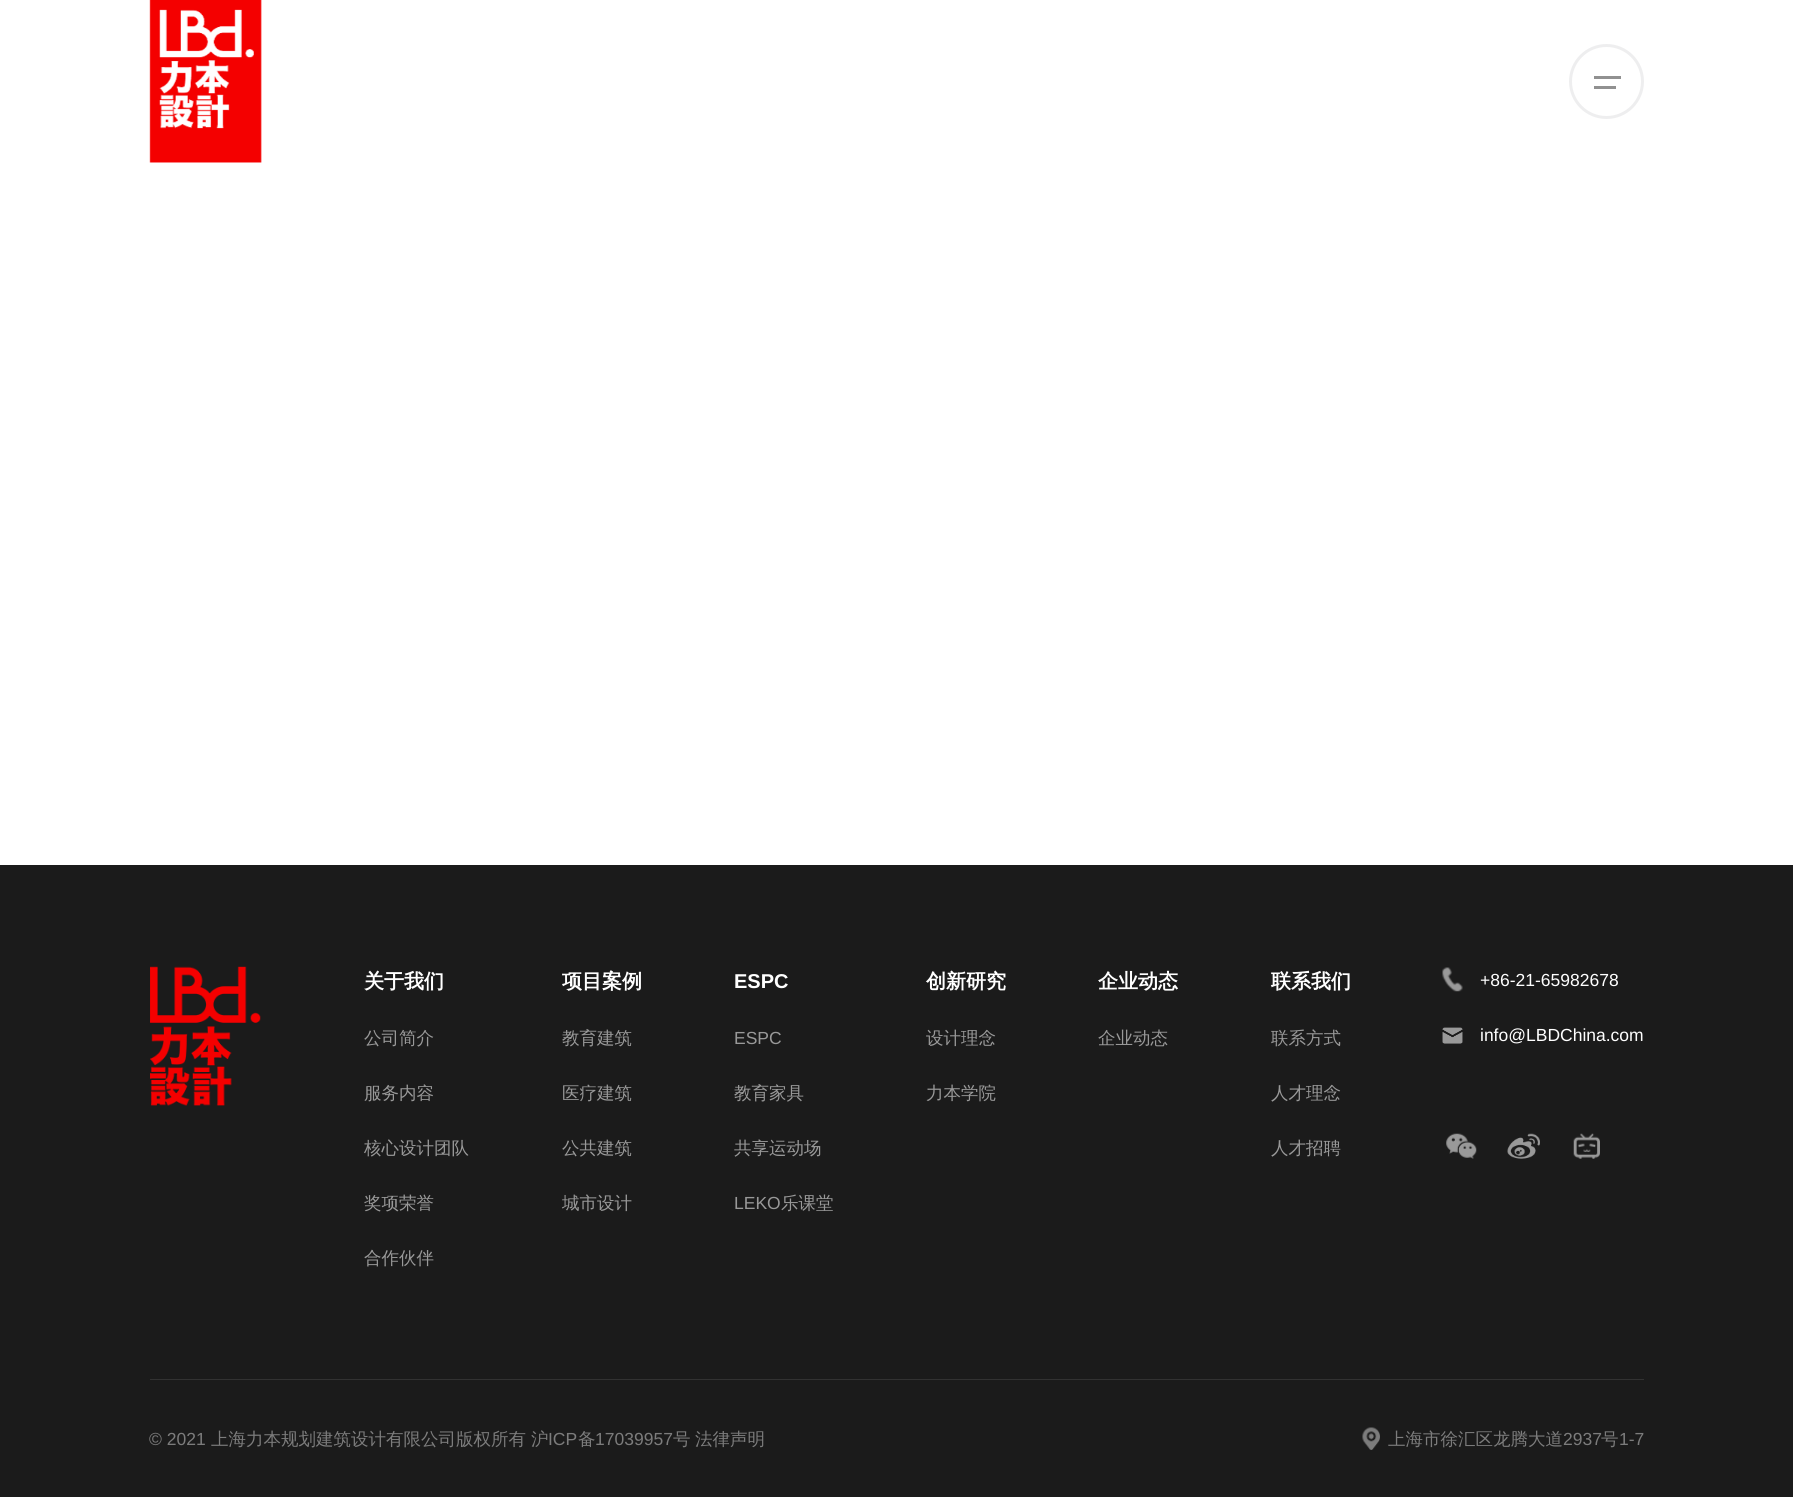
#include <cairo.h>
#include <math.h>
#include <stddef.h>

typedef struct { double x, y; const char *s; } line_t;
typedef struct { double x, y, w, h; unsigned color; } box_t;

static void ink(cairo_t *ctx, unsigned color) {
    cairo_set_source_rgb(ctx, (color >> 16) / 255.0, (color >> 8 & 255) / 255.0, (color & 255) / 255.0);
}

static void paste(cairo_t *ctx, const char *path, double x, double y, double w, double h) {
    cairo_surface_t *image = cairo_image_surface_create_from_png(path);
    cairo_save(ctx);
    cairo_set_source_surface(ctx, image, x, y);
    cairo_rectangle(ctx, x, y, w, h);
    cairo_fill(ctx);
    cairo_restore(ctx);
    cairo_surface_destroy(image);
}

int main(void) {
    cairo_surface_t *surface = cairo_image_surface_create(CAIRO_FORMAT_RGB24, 1793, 1497);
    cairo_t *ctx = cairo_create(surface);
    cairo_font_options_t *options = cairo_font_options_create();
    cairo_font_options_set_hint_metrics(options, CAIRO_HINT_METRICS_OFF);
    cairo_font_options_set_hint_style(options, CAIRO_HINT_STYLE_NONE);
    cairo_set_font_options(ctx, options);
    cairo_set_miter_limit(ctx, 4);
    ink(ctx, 0xFFFFFF);
    cairo_paint(ctx);
    paste(ctx, "media/1.png", 149, 0, 113, 163);
    cairo_arc(ctx, 1606.5, 81.5, 36, 0, 2 * M_PI);
    ink(ctx, 0xEEEEEF);
    cairo_set_line_width(ctx, 3);
    cairo_stroke(ctx);
    {
        static const box_t items[] = {
            {1594, 76, 27, 3, 0x919191},
            {1594, 86, 22, 3, 0x919191},
            {0, 865, 1793, 632, 0x1B1B1B},
        };
        for (size_t i = 0; i < sizeof items / sizeof *items; i++) {
            ink(ctx, items[i].color);
            cairo_rectangle(ctx, items[i].x, items[i].y, items[i].w, items[i].h);
            cairo_fill(ctx);
        }
    }
    paste(ctx, "media/2.png", 150, 966, 111, 140);
    cairo_select_font_face(ctx, "WenQuanYi Zen Hei", CAIRO_FONT_SLANT_NORMAL, CAIRO_FONT_WEIGHT_BOLD);
    cairo_set_font_size(ctx, 20);
    ink(ctx, 0xFFFFFF);
    cairo_move_to(ctx, 364, 988);
    cairo_show_text(ctx, "关于我们");
    cairo_select_font_face(ctx, "WenQuanYi Zen Hei Medium", CAIRO_FONT_SLANT_NORMAL, CAIRO_FONT_WEIGHT_NORMAL);
    cairo_set_font_size(ctx, 17.5);
    ink(ctx, 0x999999);
    {
        static const line_t items[] = {
            {364, 1044, "公司简介"},
            {364, 1099, "服务内容"},
            {364, 1154, "核心设计团队"},
            {364, 1209, "奖项荣誉"},
            {364, 1264, "合作伙伴"},
        };
        for (size_t i = 0; i < sizeof items / sizeof *items; i++) {
            cairo_move_to(ctx, items[i].x, items[i].y);
            cairo_show_text(ctx, items[i].s);
        }
    }
    cairo_select_font_face(ctx, "WenQuanYi Zen Hei", CAIRO_FONT_SLANT_NORMAL, CAIRO_FONT_WEIGHT_BOLD);
    cairo_set_font_size(ctx, 20);
    ink(ctx, 0xFFFFFF);
    cairo_move_to(ctx, 562, 988);
    cairo_show_text(ctx, "项目案例");
    cairo_select_font_face(ctx, "WenQuanYi Zen Hei Medium", CAIRO_FONT_SLANT_NORMAL, CAIRO_FONT_WEIGHT_NORMAL);
    cairo_set_font_size(ctx, 17.5);
    ink(ctx, 0x999999);
    {
        static const line_t items[] = {
            {562, 1044, "教育建筑"},
            {562, 1099, "医疗建筑"},
            {562, 1154, "公共建筑"},
            {562, 1209, "城市设计"},
        };
        for (size_t i = 0; i < sizeof items / sizeof *items; i++) {
            cairo_move_to(ctx, items[i].x, items[i].y);
            cairo_show_text(ctx, items[i].s);
        }
    }
    cairo_select_font_face(ctx, "Liberation Sans", CAIRO_FONT_SLANT_NORMAL, CAIRO_FONT_WEIGHT_BOLD);
    cairo_set_font_size(ctx, 20);
    ink(ctx, 0xFFFFFF);
    cairo_move_to(ctx, 734, 988);
    cairo_show_text(ctx, "ESPC");
    cairo_select_font_face(ctx, "Liberation Sans", CAIRO_FONT_SLANT_NORMAL, CAIRO_FONT_WEIGHT_NORMAL);
    cairo_set_font_size(ctx, 17.5);
    ink(ctx, 0x999999);
    cairo_move_to(ctx, 734, 1044);
    cairo_show_text(ctx, "ESPC");
    cairo_select_font_face(ctx, "WenQuanYi Zen Hei Medium", CAIRO_FONT_SLANT_NORMAL, CAIRO_FONT_WEIGHT_NORMAL);
    cairo_move_to(ctx, 734, 1099);
    cairo_show_text(ctx, "教育家具");
    cairo_move_to(ctx, 734, 1154);
    cairo_show_text(ctx, "共享运动场");
    cairo_select_font_face(ctx, "Liberation Sans", CAIRO_FONT_SLANT_NORMAL, CAIRO_FONT_WEIGHT_NORMAL);
    cairo_move_to(ctx, 734, 1209);
    cairo_show_text(ctx, "LEKO");
    cairo_select_font_face(ctx, "WenQuanYi Zen Hei Medium", CAIRO_FONT_SLANT_NORMAL, CAIRO_FONT_WEIGHT_NORMAL);
    cairo_move_to(ctx, 781, 1209);
    cairo_show_text(ctx, "乐课堂");
    cairo_select_font_face(ctx, "WenQuanYi Zen Hei", CAIRO_FONT_SLANT_NORMAL, CAIRO_FONT_WEIGHT_BOLD);
    cairo_set_font_size(ctx, 20);
    ink(ctx, 0xFFFFFF);
    cairo_move_to(ctx, 926, 988);
    cairo_show_text(ctx, "创新研究");
    cairo_select_font_face(ctx, "WenQuanYi Zen Hei Medium", CAIRO_FONT_SLANT_NORMAL, CAIRO_FONT_WEIGHT_NORMAL);
    cairo_set_font_size(ctx, 17.5);
    ink(ctx, 0x999999);
    cairo_move_to(ctx, 926, 1044);
    cairo_show_text(ctx, "设计理念");
    cairo_move_to(ctx, 926, 1099);
    cairo_show_text(ctx, "力本学院");
    cairo_select_font_face(ctx, "WenQuanYi Zen Hei", CAIRO_FONT_SLANT_NORMAL, CAIRO_FONT_WEIGHT_BOLD);
    cairo_set_font_size(ctx, 20);
    ink(ctx, 0xFFFFFF);
    cairo_move_to(ctx, 1098, 988);
    cairo_show_text(ctx, "企业动态");
    cairo_select_font_face(ctx, "WenQuanYi Zen Hei Medium", CAIRO_FONT_SLANT_NORMAL, CAIRO_FONT_WEIGHT_NORMAL);
    cairo_set_font_size(ctx, 17.5);
    ink(ctx, 0x999999);
    cairo_move_to(ctx, 1098, 1044);
    cairo_show_text(ctx, "企业动态");
    cairo_select_font_face(ctx, "WenQuanYi Zen Hei", CAIRO_FONT_SLANT_NORMAL, CAIRO_FONT_WEIGHT_BOLD);
    cairo_set_font_size(ctx, 20);
    ink(ctx, 0xFFFFFF);
    cairo_move_to(ctx, 1271, 988);
    cairo_show_text(ctx, "联系我们");
    cairo_select_font_face(ctx, "WenQuanYi Zen Hei Medium", CAIRO_FONT_SLANT_NORMAL, CAIRO_FONT_WEIGHT_NORMAL);
    cairo_set_font_size(ctx, 17.5);
    ink(ctx, 0x999999);
    {
        static const line_t items[] = {
            {1271, 1044, "联系方式"},
            {1271, 1099, "人才理念"},
            {1271, 1154, "人才招聘"},
        };
        for (size_t i = 0; i < sizeof items / sizeof *items; i++) {
            cairo_move_to(ctx, items[i].x, items[i].y);
            cairo_show_text(ctx, items[i].s);
        }
    }
    paste(ctx, "media/3.png", 1442, 967, 21, 25);
    cairo_select_font_face(ctx, "Liberation Sans", CAIRO_FONT_SLANT_NORMAL, CAIRO_FONT_WEIGHT_NORMAL);
    ink(ctx, 0xFFFFFF);
    cairo_move_to(ctx, 1480, 986);
    cairo_show_text(ctx, "+86-21-65982678");
    paste(ctx, "media/4.png", 1442, 1027, 21, 17);
    cairo_move_to(ctx, 1480, 1041);
    cairo_show_text(ctx, "info@LBDChina.com");
    paste(ctx, "media/5.png", 1446, 1133, 31, 26);
    paste(ctx, "media/6.png", 1507, 1133, 33, 26);
    paste(ctx, "media/7.png", 1573, 1133, 27, 26);
    ink(ctx, 0x323232);
    cairo_rectangle(ctx, 150, 1379, 1494, 1);
    cairo_fill(ctx);
    ink(ctx, 0x7C7C7C);
    cairo_move_to(ctx, 149, 1445);
    cairo_show_text(ctx, "© 2021");
    cairo_select_font_face(ctx, "WenQuanYi Zen Hei Medium", CAIRO_FONT_SLANT_NORMAL, CAIRO_FONT_WEIGHT_NORMAL);
    cairo_move_to(ctx, 211, 1445);
    cairo_show_text(ctx, "上海力本规划建筑设计有限公司版权所有");
    cairo_move_to(ctx, 531, 1445);
    cairo_show_text(ctx, "沪");
    cairo_select_font_face(ctx, "Liberation Sans", CAIRO_FONT_SLANT_NORMAL, CAIRO_FONT_WEIGHT_NORMAL);
    cairo_move_to(ctx, 548, 1445);
    cairo_show_text(ctx, "ICP");
    cairo_select_font_face(ctx, "WenQuanYi Zen Hei Medium", CAIRO_FONT_SLANT_NORMAL, CAIRO_FONT_WEIGHT_NORMAL);
    cairo_move_to(ctx, 578, 1445);
    cairo_show_text(ctx, "备");
    cairo_select_font_face(ctx, "Liberation Sans", CAIRO_FONT_SLANT_NORMAL, CAIRO_FONT_WEIGHT_NORMAL);
    cairo_move_to(ctx, 595, 1445);
    cairo_show_text(ctx, "17039957");
    cairo_select_font_face(ctx, "WenQuanYi Zen Hei Medium", CAIRO_FONT_SLANT_NORMAL, CAIRO_FONT_WEIGHT_NORMAL);
    cairo_move_to(ctx, 673, 1445);
    cairo_show_text(ctx, "号");
    cairo_move_to(ctx, 695, 1445);
    cairo_show_text(ctx, "法律声明");
    paste(ctx, "media/8.png", 1362, 1427, 18, 23);
    cairo_move_to(ctx, 1388, 1445);
    cairo_show_text(ctx, "上海市徐汇区龙腾大道");
    cairo_select_font_face(ctx, "Liberation Sans", CAIRO_FONT_SLANT_NORMAL, CAIRO_FONT_WEIGHT_NORMAL);
    cairo_move_to(ctx, 1563, 1445);
    cairo_show_text(ctx, "2937");
    cairo_select_font_face(ctx, "WenQuanYi Zen Hei Medium", CAIRO_FONT_SLANT_NORMAL, CAIRO_FONT_WEIGHT_NORMAL);
    cairo_move_to(ctx, 1601, 1445);
    cairo_show_text(ctx, "号");
    cairo_select_font_face(ctx, "Liberation Sans", CAIRO_FONT_SLANT_NORMAL, CAIRO_FONT_WEIGHT_NORMAL);
    cairo_move_to(ctx, 1619, 1445);
    cairo_show_text(ctx, "1-7");
    cairo_surface_write_to_png(surface, "image.png");
    cairo_font_options_destroy(options);
    cairo_destroy(ctx);
    cairo_surface_destroy(surface);
    return 0;
}
